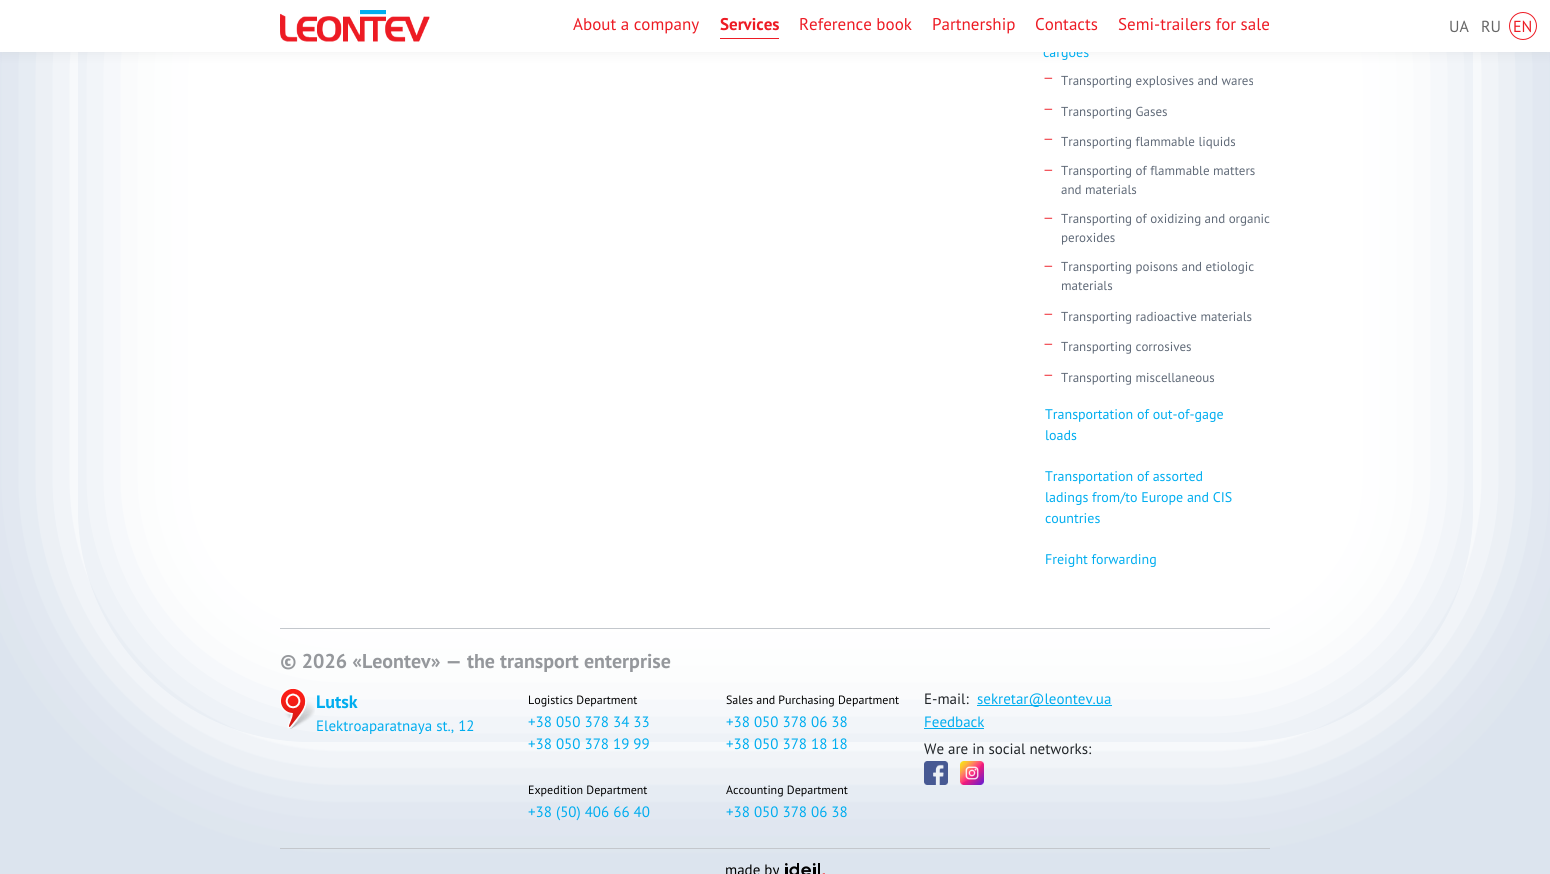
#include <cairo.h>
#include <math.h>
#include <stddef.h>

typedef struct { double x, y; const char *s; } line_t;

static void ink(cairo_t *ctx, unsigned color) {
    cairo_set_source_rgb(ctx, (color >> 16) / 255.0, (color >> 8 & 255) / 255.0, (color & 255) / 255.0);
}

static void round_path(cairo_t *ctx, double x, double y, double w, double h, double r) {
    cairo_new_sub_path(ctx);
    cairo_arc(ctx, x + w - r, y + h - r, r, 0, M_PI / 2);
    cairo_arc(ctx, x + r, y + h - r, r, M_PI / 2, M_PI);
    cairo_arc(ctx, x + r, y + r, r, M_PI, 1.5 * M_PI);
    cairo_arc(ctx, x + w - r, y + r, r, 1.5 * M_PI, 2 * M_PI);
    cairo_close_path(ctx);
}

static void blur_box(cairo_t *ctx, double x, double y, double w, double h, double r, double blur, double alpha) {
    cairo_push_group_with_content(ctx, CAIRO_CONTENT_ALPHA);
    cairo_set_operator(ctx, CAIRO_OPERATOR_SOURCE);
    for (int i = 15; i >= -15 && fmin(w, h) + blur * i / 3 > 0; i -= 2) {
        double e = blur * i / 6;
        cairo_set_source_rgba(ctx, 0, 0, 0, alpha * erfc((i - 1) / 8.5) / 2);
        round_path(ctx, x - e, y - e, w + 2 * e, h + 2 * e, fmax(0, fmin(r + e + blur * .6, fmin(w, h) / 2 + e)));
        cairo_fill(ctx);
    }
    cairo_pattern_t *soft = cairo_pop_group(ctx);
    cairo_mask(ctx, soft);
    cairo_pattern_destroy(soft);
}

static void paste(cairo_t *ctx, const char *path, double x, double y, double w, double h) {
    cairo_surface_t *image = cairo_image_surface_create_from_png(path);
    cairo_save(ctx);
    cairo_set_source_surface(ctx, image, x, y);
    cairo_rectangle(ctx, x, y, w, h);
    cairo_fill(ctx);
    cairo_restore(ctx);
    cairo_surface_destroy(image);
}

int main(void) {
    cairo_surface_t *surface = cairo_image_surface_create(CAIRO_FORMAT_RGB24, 1550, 874);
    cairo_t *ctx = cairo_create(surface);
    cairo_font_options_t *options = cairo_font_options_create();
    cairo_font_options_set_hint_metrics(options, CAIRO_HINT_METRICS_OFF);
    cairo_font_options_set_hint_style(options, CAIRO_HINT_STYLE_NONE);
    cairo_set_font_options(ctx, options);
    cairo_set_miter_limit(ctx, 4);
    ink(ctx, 0xDCE4EE);
    cairo_paint(ctx);
    cairo_save(ctx);
    cairo_set_fill_rule(ctx, CAIRO_FILL_RULE_EVEN_ODD);
    cairo_new_path(ctx);
    cairo_move_to(ctx, 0, 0);
    cairo_line_to(ctx, 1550, 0);
    cairo_line_to(ctx, 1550, 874);
    cairo_line_to(ctx, 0, 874);
    cairo_close_path(ctx);
    cairo_move_to(ctx, 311, -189);
    cairo_line_to(ctx, 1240, -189);
    cairo_curve_to(ctx, 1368.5, -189, 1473, -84.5, 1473, 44);
    cairo_line_to(ctx, 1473, 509);
    cairo_curve_to(ctx, 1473, 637.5, 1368.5, 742, 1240, 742);
    cairo_line_to(ctx, 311, 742);
    cairo_curve_to(ctx, 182.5, 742, 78, 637.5, 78, 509);
    cairo_line_to(ctx, 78, 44);
    cairo_curve_to(ctx, 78, -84.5, 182.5, -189, 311, -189);
    cairo_close_path(ctx);
    cairo_clip(ctx);
    ink(ctx, 0xFFFFFF);
    blur_box(ctx, 78, -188, 1395, 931, 233, 51, 1);
    cairo_restore(ctx);
    ink(ctx, 0xFFFFFF);
    blur_box(ctx, 78, -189, 1395, 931, 233, 51, 1);
    ink(ctx, 0x000000);
    blur_box(ctx, 1, 3, 1548, 51, 0, 6, 0.05);
    cairo_select_font_face(ctx, "PT Sans", CAIRO_FONT_SLANT_NORMAL, CAIRO_FONT_WEIGHT_NORMAL);
    cairo_set_font_size(ctx, 14);
    ink(ctx, 0x00ADEF);
    cairo_move_to(ctx, 1043, 57);
    cairo_show_text(ctx, "cargoes");
    ink(ctx, 0xFFFFFF);
    cairo_rectangle(ctx, 0, 0, 1550, 52);
    cairo_fill(ctx);
    paste(ctx, "media/1.png", 280, 10, 150, 32);
    cairo_set_font_size(ctx, 17);
    ink(ctx, 0xED1B24);
    cairo_move_to(ctx, 573, 30);
    cairo_show_text(ctx, "About a company");
    cairo_rectangle(ctx, 720, 38, 59, 1);
    cairo_fill(ctx);
    cairo_select_font_face(ctx, "PT Sans", CAIRO_FONT_SLANT_NORMAL, CAIRO_FONT_WEIGHT_BOLD);
    cairo_move_to(ctx, 720, 30);
    cairo_show_text(ctx, "Services");
    cairo_select_font_face(ctx, "PT Sans", CAIRO_FONT_SLANT_NORMAL, CAIRO_FONT_WEIGHT_NORMAL);
    {
        static const line_t items[] = {
            {799, 30, "Reference book"},
            {932, 30, "Partnership"},
            {1035, 30, "Contacts"},
            {1118, 30, "Semi-trailers for sale"},
        };
        for (size_t i = 0; i < sizeof items / sizeof *items; i++) {
            cairo_move_to(ctx, items[i].x, items[i].y);
            cairo_show_text(ctx, items[i].s);
        }
    }
    cairo_set_font_size(ctx, 16);
    ink(ctx, 0x666666);
    cairo_move_to(ctx, 1449, 32);
    cairo_show_text(ctx, "UA");
    cairo_move_to(ctx, 1481, 32);
    cairo_show_text(ctx, "RU");
    cairo_new_path(ctx);
    cairo_arc(ctx, 1523, 26, 13.5, 0, 2 * M_PI);
    ink(ctx, 0xED1B24);
    cairo_set_line_width(ctx, 1);
    cairo_stroke(ctx);
    cairo_move_to(ctx, 1513, 32);
    cairo_show_text(ctx, "EN");
    cairo_set_font_size(ctx, 13);
    cairo_move_to(ctx, 1043, 82);
    cairo_show_text(ctx, "—");
    ink(ctx, 0x606A78);
    cairo_move_to(ctx, 1061, 85);
    cairo_show_text(ctx, "Transporting explosives and wares");
    ink(ctx, 0xED1B24);
    cairo_move_to(ctx, 1043, 113);
    cairo_show_text(ctx, "—");
    ink(ctx, 0x606A78);
    cairo_move_to(ctx, 1061, 116);
    cairo_show_text(ctx, "Transporting Gases");
    ink(ctx, 0xED1B24);
    cairo_move_to(ctx, 1043, 143);
    cairo_show_text(ctx, "—");
    ink(ctx, 0x606A78);
    cairo_move_to(ctx, 1061, 146);
    cairo_show_text(ctx, "Transporting flammable liquids");
    ink(ctx, 0xED1B24);
    cairo_move_to(ctx, 1043, 174);
    cairo_show_text(ctx, "—");
    ink(ctx, 0x606A78);
    cairo_move_to(ctx, 1061, 175);
    cairo_show_text(ctx, "Transporting of flammable matters");
    cairo_move_to(ctx, 1061, 194);
    cairo_show_text(ctx, "and materials");
    ink(ctx, 0xED1B24);
    cairo_move_to(ctx, 1043, 222);
    cairo_show_text(ctx, "—");
    ink(ctx, 0x606A78);
    cairo_move_to(ctx, 1061, 223);
    cairo_show_text(ctx, "Transporting of oxidizing and organic");
    cairo_move_to(ctx, 1061, 242);
    cairo_show_text(ctx, "peroxides");
    ink(ctx, 0xED1B24);
    cairo_move_to(ctx, 1043, 270);
    cairo_show_text(ctx, "—");
    ink(ctx, 0x606A78);
    cairo_move_to(ctx, 1061, 271);
    cairo_show_text(ctx, "Transporting poisons and etiologic");
    cairo_move_to(ctx, 1061, 290);
    cairo_show_text(ctx, "materials");
    ink(ctx, 0xED1B24);
    cairo_move_to(ctx, 1043, 318);
    cairo_show_text(ctx, "—");
    ink(ctx, 0x606A78);
    cairo_move_to(ctx, 1061, 321);
    cairo_show_text(ctx, "Transporting radioactive materials");
    ink(ctx, 0xED1B24);
    cairo_move_to(ctx, 1043, 348);
    cairo_show_text(ctx, "—");
    ink(ctx, 0x606A78);
    cairo_move_to(ctx, 1061, 351);
    cairo_show_text(ctx, "Transporting corrosives");
    ink(ctx, 0xED1B24);
    cairo_move_to(ctx, 1043, 379);
    cairo_show_text(ctx, "—");
    ink(ctx, 0x606A78);
    cairo_move_to(ctx, 1061, 382);
    cairo_show_text(ctx, "Transporting miscellaneous");
    cairo_set_font_size(ctx, 14);
    ink(ctx, 0x00ADEF);
    {
        static const line_t items[] = {
            {1045, 419, "Transportation of out-of-gage"},
            {1045, 440, "loads"},
            {1045, 481, "Transportation of assorted"},
            {1045, 502, "ladings from/to Europe and CIS"},
            {1045, 523, "countries"},
            {1045, 564, "Freight forwarding"},
        };
        for (size_t i = 0; i < sizeof items / sizeof *items; i++) {
            cairo_move_to(ctx, items[i].x, items[i].y);
            cairo_show_text(ctx, items[i].s);
        }
    }
    ink(ctx, 0xC3C7CC);
    cairo_rectangle(ctx, 280, 628, 990, 1);
    cairo_fill(ctx);
    cairo_select_font_face(ctx, "PT Sans", CAIRO_FONT_SLANT_NORMAL, CAIRO_FONT_WEIGHT_BOLD);
    cairo_set_font_size(ctx, 20);
    ink(ctx, 0x95989C);
    cairo_move_to(ctx, 280, 668);
    cairo_show_text(ctx, "© 2026 «Leontev» — the transport enterprise");
    paste(ctx, "media/2.png", 280, 688, 35, 41);
    cairo_set_font_size(ctx, 18);
    ink(ctx, 0x00ADEF);
    cairo_move_to(ctx, 316, 708);
    cairo_show_text(ctx, "Lutsk");
    cairo_select_font_face(ctx, "PT Sans", CAIRO_FONT_SLANT_NORMAL, CAIRO_FONT_WEIGHT_NORMAL);
    cairo_set_font_size(ctx, 15);
    cairo_move_to(ctx, 316, 731);
    cairo_show_text(ctx, "Elektroaparatnaya st., 12");
    cairo_set_font_size(ctx, 12);
    ink(ctx, 0x000000);
    cairo_move_to(ctx, 528, 704);
    cairo_show_text(ctx, "Logistics Department");
    cairo_set_font_size(ctx, 15);
    ink(ctx, 0x00ADEF);
    cairo_move_to(ctx, 528, 727);
    cairo_show_text(ctx, "+38 050 378 34 33");
    cairo_move_to(ctx, 528, 749);
    cairo_show_text(ctx, "+38 050 378 19 99");
    cairo_set_font_size(ctx, 12);
    ink(ctx, 0x000000);
    cairo_move_to(ctx, 528, 794);
    cairo_show_text(ctx, "Expedition Department");
    cairo_set_font_size(ctx, 15);
    ink(ctx, 0x00ADEF);
    cairo_move_to(ctx, 528, 817);
    cairo_show_text(ctx, "+38 (50) 406 66 40");
    cairo_set_font_size(ctx, 12);
    ink(ctx, 0x000000);
    cairo_move_to(ctx, 726, 704);
    cairo_show_text(ctx, "Sales and Purchasing Department");
    cairo_set_font_size(ctx, 15);
    ink(ctx, 0x00ADEF);
    cairo_move_to(ctx, 726, 727);
    cairo_show_text(ctx, "+38 050 378 06 38");
    cairo_move_to(ctx, 726, 749);
    cairo_show_text(ctx, "+38 050 378 18 18");
    cairo_set_font_size(ctx, 12);
    ink(ctx, 0x000000);
    cairo_move_to(ctx, 726, 794);
    cairo_show_text(ctx, "Accounting Department");
    cairo_set_font_size(ctx, 15);
    ink(ctx, 0x00ADEF);
    cairo_move_to(ctx, 726, 817);
    cairo_show_text(ctx, "+38 050 378 06 38");
    ink(ctx, 0x212529);
    cairo_move_to(ctx, 924, 704);
    cairo_show_text(ctx, "E-mail:");
    ink(ctx, 0x00ADEF);
    cairo_rectangle(ctx, 977, 705, 135, 1);
    cairo_fill(ctx);
    cairo_move_to(ctx, 977, 704);
    cairo_show_text(ctx, "sekretar@leontev.ua");
    cairo_move_to(ctx, 924, 727);
    cairo_show_text(ctx, "Feedback");
    cairo_rectangle(ctx, 924, 728, 60, 1);
    cairo_fill(ctx);
    ink(ctx, 0x212529);
    cairo_move_to(ctx, 924, 754);
    cairo_show_text(ctx, "We are in social networks:");
    paste(ctx, "media/3.png", 924, 761, 24, 24);
    paste(ctx, "media/4.png", 960, 761, 24, 24);
    ink(ctx, 0xC3C7CC);
    cairo_rectangle(ctx, 280, 848, 990, 1);
    cairo_fill(ctx);
    ink(ctx, 0x000000);
    cairo_move_to(ctx, 725, 875);
    cairo_show_text(ctx, "made by");
    paste(ctx, "media/5.png", 785, 863, 40, 11);
    cairo_surface_write_to_png(surface, "image.png");
    cairo_font_options_destroy(options);
    cairo_destroy(ctx);
    cairo_surface_destroy(surface);
    return 0;
}
